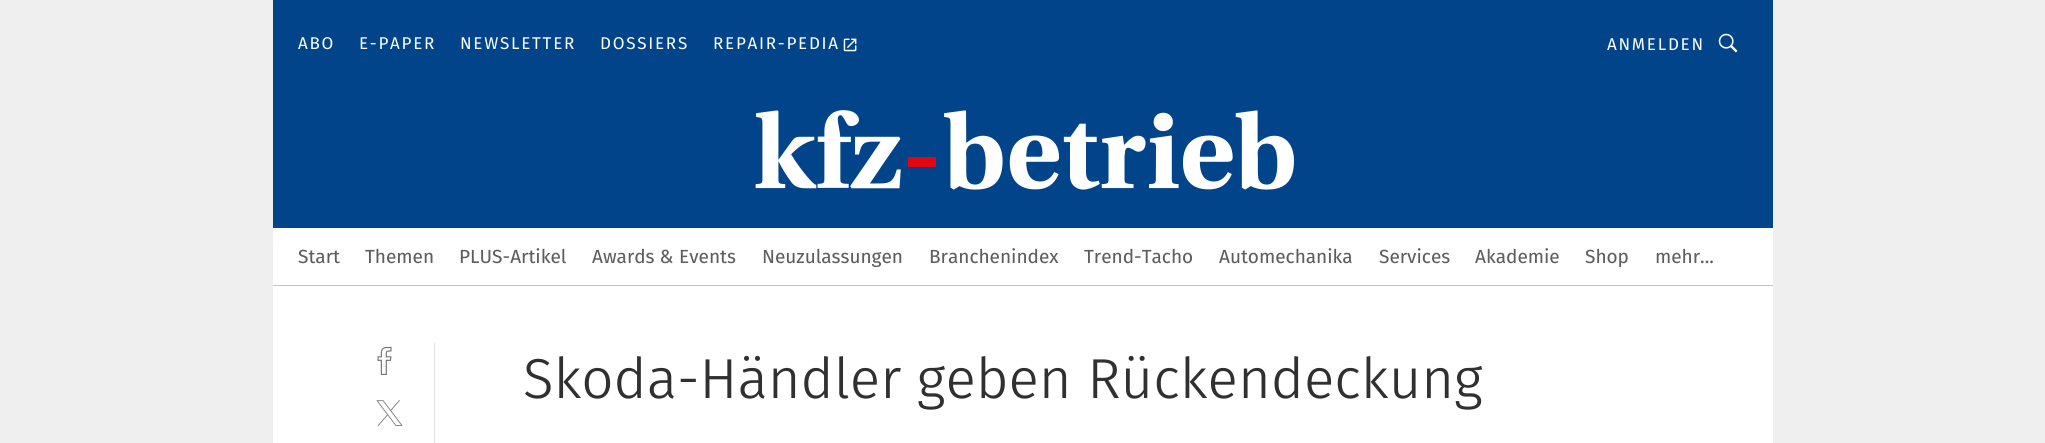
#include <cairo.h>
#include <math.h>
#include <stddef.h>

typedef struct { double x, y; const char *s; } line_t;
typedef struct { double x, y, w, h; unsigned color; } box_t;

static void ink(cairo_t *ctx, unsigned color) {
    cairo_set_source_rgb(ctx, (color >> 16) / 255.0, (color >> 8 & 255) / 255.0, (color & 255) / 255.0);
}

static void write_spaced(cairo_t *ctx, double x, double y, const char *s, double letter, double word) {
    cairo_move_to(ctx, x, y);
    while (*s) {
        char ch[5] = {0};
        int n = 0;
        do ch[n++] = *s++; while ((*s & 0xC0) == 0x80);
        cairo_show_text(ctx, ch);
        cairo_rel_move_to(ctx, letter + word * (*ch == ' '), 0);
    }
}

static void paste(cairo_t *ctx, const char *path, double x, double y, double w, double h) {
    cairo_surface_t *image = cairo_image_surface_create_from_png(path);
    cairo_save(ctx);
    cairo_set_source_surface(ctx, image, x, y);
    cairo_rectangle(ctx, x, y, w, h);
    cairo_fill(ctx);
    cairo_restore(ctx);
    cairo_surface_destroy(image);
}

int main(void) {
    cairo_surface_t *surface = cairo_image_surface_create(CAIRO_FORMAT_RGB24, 2045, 443);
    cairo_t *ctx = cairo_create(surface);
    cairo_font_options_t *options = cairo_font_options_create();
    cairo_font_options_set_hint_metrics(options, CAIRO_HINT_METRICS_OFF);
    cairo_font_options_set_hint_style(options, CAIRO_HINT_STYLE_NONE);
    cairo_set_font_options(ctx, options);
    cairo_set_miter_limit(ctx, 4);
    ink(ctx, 0xEFEFEF);
    cairo_paint(ctx);
    {
        static const box_t items[] = {
            {273, 286, 1500, 157, 0xFFFFFF},
            {273, 285, 1500, 1, 0xC6C6C6},
            {273, 0, 1500, 228, 0x014489},
        };
        for (size_t i = 0; i < sizeof items / sizeof *items; i++) {
            ink(ctx, items[i].color);
            cairo_rectangle(ctx, items[i].x, items[i].y, items[i].w, items[i].h);
            cairo_fill(ctx);
        }
    }
    cairo_select_font_face(ctx, "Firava", CAIRO_FONT_SLANT_NORMAL, CAIRO_FONT_WEIGHT_NORMAL);
    cairo_set_font_size(ctx, 17);
    ink(ctx, 0xFFFFFF);
    {
        static const line_t items[] = {
            {298, 49, "ABO"},
            {359, 49, "E-PAPER"},
            {460, 49, "NEWSLETTER"},
            {600, 49, "DOSSIERS"},
            {713, 49, "REPAIR-PEDIA"},
        };
        for (size_t i = 0; i < sizeof items / sizeof *items; i++) {
            write_spaced(ctx, items[i].x, items[i].y, items[i].s, 1.75, 0);
        }
    }
    paste(ctx, "media/1.png", 843, 38, 14, 14);
    write_spaced(ctx, 1607, 50, "ANMELDEN", 1.75, 0);
    paste(ctx, "media/2.png", 1718, 33, 20, 20);
    paste(ctx, "media/3.png", 755, 110, 539, 80);
    cairo_rectangle(ctx, 273, 228, 1500, 57);
    cairo_fill(ctx);
    cairo_select_font_face(ctx, "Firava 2", CAIRO_FONT_SLANT_NORMAL, CAIRO_FONT_WEIGHT_NORMAL);
    cairo_set_font_size(ctx, 19);
    ink(ctx, 0x5E5E5E);
    {
        static const line_t items[] = {
            {298, 263, "Start"},
            {365, 263, "Themen"},
            {459, 263, "PLUS-Artikel"},
            {592, 263, "Awards & Events"},
            {762, 263, "Neuzulassungen"},
            {929, 263, "Branchenindex"},
            {1084, 263, "Trend-Tacho"},
            {1219, 263, "Automechanika"},
            {1379, 263, "Services"},
            {1475, 263, "Akademie"},
            {1585, 263, "Shop"},
            {1655, 263, "mehr..."},
        };
        for (size_t i = 0; i < sizeof items / sizeof *items; i++) {
            cairo_move_to(ctx, items[i].x, items[i].y);
            cairo_show_text(ctx, items[i].s);
        }
    }
    ink(ctx, 0xE2E2E2);
    cairo_rectangle(ctx, 434, 343, 1, 100);
    cairo_fill(ctx);
    paste(ctx, "media/4.png", 377, 346, 15, 29);
    paste(ctx, "media/5.png", 376, 400, 27, 26);
    cairo_select_font_face(ctx, "Firava Light", CAIRO_FONT_SLANT_NORMAL, CAIRO_FONT_WEIGHT_NORMAL);
    cairo_set_font_size(ctx, 56.25);
    ink(ctx, 0x303030);
    cairo_move_to(ctx, 523, 398);
    cairo_show_text(ctx, "Skoda-Händler geben Rückendeckung");
    cairo_surface_write_to_png(surface, "image.png");
    cairo_font_options_destroy(options);
    cairo_destroy(ctx);
    cairo_surface_destroy(surface);
    return 0;
}
